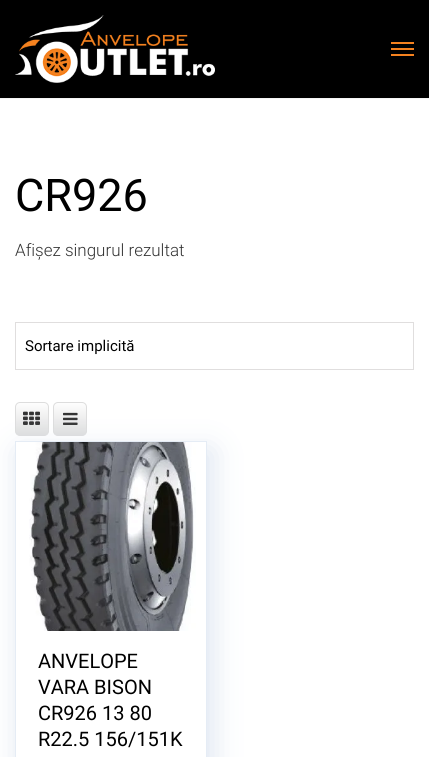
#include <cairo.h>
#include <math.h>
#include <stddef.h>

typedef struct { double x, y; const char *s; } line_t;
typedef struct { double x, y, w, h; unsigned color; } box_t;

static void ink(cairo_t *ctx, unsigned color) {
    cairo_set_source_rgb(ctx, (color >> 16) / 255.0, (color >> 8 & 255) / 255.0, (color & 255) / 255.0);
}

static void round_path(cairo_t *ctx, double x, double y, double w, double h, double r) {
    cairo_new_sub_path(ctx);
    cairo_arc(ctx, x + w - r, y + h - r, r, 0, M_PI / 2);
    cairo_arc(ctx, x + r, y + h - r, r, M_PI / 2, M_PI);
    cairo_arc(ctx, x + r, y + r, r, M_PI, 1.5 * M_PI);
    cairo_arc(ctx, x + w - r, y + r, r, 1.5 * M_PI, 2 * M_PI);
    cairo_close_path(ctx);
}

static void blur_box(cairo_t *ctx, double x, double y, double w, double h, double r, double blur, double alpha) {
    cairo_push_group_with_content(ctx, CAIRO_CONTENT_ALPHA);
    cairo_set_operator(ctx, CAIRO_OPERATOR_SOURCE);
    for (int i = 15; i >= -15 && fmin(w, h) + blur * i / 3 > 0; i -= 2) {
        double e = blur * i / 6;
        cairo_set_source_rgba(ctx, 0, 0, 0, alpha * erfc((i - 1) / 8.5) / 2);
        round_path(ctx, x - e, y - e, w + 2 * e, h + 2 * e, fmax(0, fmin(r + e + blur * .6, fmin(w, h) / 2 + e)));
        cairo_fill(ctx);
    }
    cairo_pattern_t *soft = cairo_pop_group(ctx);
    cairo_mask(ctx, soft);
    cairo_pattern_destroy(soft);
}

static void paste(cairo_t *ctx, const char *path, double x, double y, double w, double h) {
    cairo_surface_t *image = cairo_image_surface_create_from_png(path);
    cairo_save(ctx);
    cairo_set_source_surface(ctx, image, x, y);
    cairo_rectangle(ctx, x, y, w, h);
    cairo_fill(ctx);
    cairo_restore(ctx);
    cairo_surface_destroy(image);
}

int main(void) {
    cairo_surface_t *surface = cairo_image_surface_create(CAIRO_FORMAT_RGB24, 429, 757);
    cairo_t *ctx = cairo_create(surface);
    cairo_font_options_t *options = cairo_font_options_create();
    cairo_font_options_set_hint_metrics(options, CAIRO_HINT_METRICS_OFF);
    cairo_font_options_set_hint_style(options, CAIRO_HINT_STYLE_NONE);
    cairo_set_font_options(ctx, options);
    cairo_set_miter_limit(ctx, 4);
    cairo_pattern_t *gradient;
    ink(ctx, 0xFFFFFF);
    cairo_paint(ctx);
    ink(ctx, 0x000000);
    cairo_rectangle(ctx, 0, 0, 429, 98);
    cairo_fill(ctx);
    ink(ctx, 0xF5F5F5);
    cairo_rectangle(ctx, 0, 98, 429, 1);
    cairo_fill(ctx);
    paste(ctx, "media/1.png", 15, 15, 200, 68);
    {
        static const box_t items[] = {
            {391, 42, 23, 2, 0xF5821F},
            {391, 48, 23, 2, 0xF5821F},
            {391, 54, 23, 2, 0xF5821F},
        };
        for (size_t i = 0; i < sizeof items / sizeof *items; i++) {
            ink(ctx, items[i].color);
            cairo_rectangle(ctx, items[i].x, items[i].y, items[i].w, items[i].h);
            cairo_fill(ctx);
        }
    }
    cairo_select_font_face(ctx, "Roboto", CAIRO_FONT_SLANT_NORMAL, CAIRO_FONT_WEIGHT_NORMAL);
    cairo_set_font_size(ctx, 45);
    ink(ctx, 0x000000);
    cairo_move_to(ctx, 15, 211);
    cairo_show_text(ctx, "CR926");
    cairo_select_font_face(ctx, "Roboto Light", CAIRO_FONT_SLANT_NORMAL, CAIRO_FONT_WEIGHT_NORMAL);
    cairo_set_font_size(ctx, 17);
    ink(ctx, 0x333333);
    cairo_move_to(ctx, 15, 256);
    cairo_show_text(ctx, "Afișez singurul rezultat");
    cairo_rectangle(ctx, 15.5, 322.5, 398, 47);
    ink(ctx, 0xE0DEDE);
    cairo_set_line_width(ctx, 1);
    cairo_stroke(ctx);
    cairo_select_font_face(ctx, "Roboto", CAIRO_FONT_SLANT_NORMAL, CAIRO_FONT_WEIGHT_NORMAL);
    cairo_set_font_size(ctx, 15);
    ink(ctx, 0x000000);
    cairo_move_to(ctx, 25, 351);
    cairo_show_text(ctx, "Sortare implicită");
    gradient = cairo_pattern_create_linear(32, 402, 32, 436);
    cairo_pattern_add_color_stop_rgba(gradient, 0, 1, 1, 1, 1);
    cairo_pattern_add_color_stop_rgba(gradient, 1, 0.863, 0.863, 0.863, 1);
    cairo_set_source(ctx, gradient);
    cairo_pattern_destroy(gradient);
    round_path(ctx, 15.5, 402.5, 33, 33, 4.5);
    cairo_fill_preserve(ctx);
    ink(ctx, 0xDDDDDD);
    cairo_stroke(ctx);
    paste(ctx, "media/2.png", 23, 411, 17, 14);
    gradient = cairo_pattern_create_linear(70, 402, 70, 436);
    cairo_pattern_add_color_stop_rgba(gradient, 0, 1, 1, 1, 1);
    cairo_pattern_add_color_stop_rgba(gradient, 1, 0.863, 0.863, 0.863, 1);
    cairo_set_source(ctx, gradient);
    cairo_pattern_destroy(gradient);
    round_path(ctx, 53.5, 402.5, 33, 33, 4.5);
    cairo_fill_preserve(ctx);
    ink(ctx, 0xDDDDDD);
    cairo_stroke(ctx);
    paste(ctx, "media/3.png", 63, 412, 15, 13);
    cairo_save(ctx);
    cairo_set_fill_rule(ctx, CAIRO_FILL_RULE_EVEN_ODD);
    cairo_new_path(ctx);
    cairo_move_to(ctx, 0, 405);
    cairo_line_to(ctx, 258, 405);
    cairo_line_to(ctx, 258, 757);
    cairo_line_to(ctx, 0, 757);
    cairo_close_path(ctx);
    cairo_move_to(ctx, 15, 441);
    cairo_line_to(ctx, 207, 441);
    cairo_line_to(ctx, 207, 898);
    cairo_line_to(ctx, 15, 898);
    cairo_close_path(ctx);
    cairo_clip(ctx);
    ink(ctx, 0xD5DFED);
    blur_box(ctx, 20, 451, 192, 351, 0, 15, 0.83);
    cairo_restore(ctx);
    cairo_rectangle(ctx, 15.5, 441.5, 191, 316);
    ink(ctx, 0xE5ECF5);
    cairo_stroke(ctx);
    paste(ctx, "media/4.png", 29, 442, 167, 189);
    cairo_set_font_size(ctx, 20);
    ink(ctx, 0x000000);
    {
        static const line_t items[] = {
            {38, 668, "ANVELOPE"},
            {38, 694, "VARA BISON"},
            {38, 720, "CR926 13 80"},
            {38, 746, "R22.5 156/151K"},
        };
        for (size_t i = 0; i < sizeof items / sizeof *items; i++) {
            cairo_move_to(ctx, items[i].x, items[i].y);
            cairo_show_text(ctx, items[i].s);
        }
    }
    cairo_surface_write_to_png(surface, "image.png");
    cairo_font_options_destroy(options);
    cairo_destroy(ctx);
    cairo_surface_destroy(surface);
    return 0;
}
